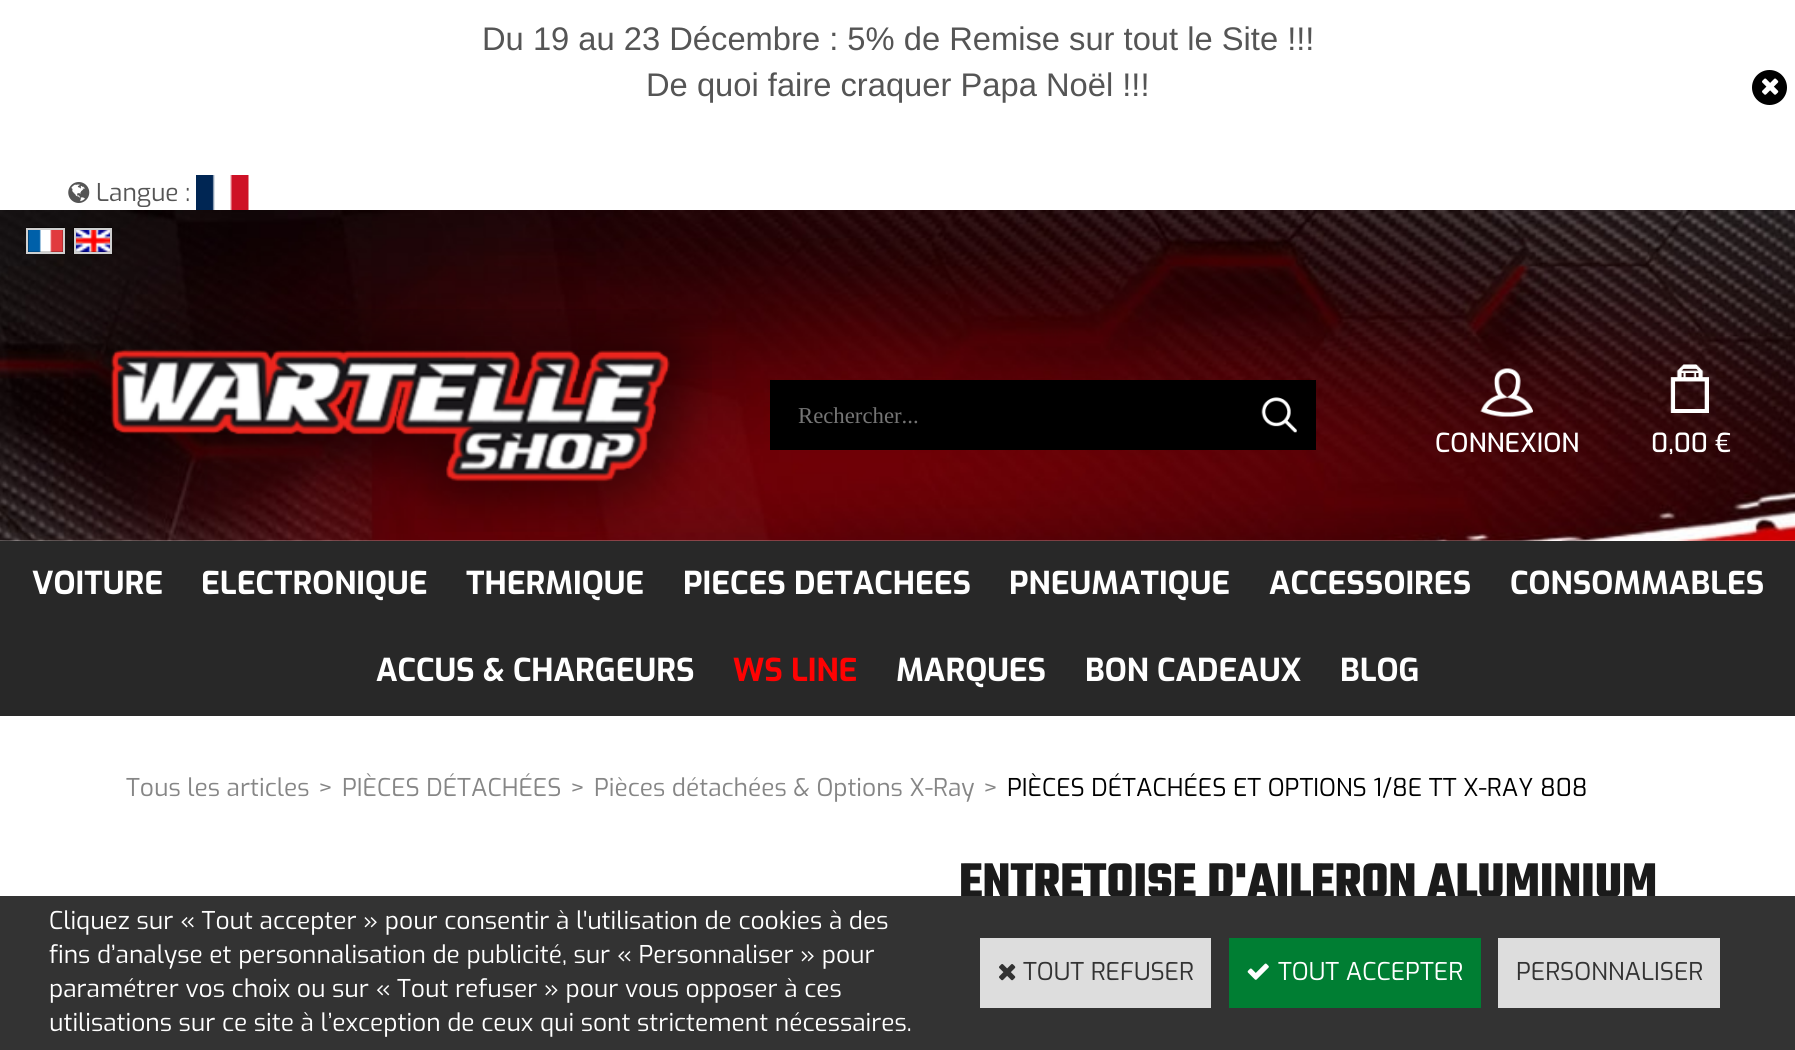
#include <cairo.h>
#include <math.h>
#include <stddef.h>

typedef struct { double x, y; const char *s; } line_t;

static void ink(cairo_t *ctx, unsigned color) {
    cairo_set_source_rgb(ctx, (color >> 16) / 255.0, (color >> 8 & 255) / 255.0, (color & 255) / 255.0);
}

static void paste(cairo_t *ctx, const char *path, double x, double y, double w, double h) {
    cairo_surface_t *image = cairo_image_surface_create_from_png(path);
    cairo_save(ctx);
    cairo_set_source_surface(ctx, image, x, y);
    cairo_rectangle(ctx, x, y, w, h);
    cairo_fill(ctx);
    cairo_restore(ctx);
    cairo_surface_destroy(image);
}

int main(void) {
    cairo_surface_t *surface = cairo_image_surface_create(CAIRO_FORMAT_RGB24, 1795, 1050);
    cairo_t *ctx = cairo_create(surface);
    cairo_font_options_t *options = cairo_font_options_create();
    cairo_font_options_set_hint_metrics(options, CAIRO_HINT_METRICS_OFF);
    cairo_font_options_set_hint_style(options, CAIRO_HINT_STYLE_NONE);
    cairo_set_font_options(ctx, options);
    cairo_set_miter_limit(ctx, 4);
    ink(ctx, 0xFFFFFF);
    cairo_paint(ctx);
    cairo_select_font_face(ctx, "Liberation Sans", CAIRO_FONT_SLANT_NORMAL, CAIRO_FONT_WEIGHT_NORMAL);
    cairo_set_font_size(ctx, 32.7);
    ink(ctx, 0x555555);
    cairo_move_to(ctx, 482, 50);
    cairo_show_text(ctx, "Du 19 au 23 Décembre : 5% de Remise sur tout le Site !!!");
    cairo_move_to(ctx, 646, 96);
    cairo_show_text(ctx, "De quoi faire craquer Papa Noël !!!");
    ink(ctx, 0x000000);
    cairo_new_path(ctx);
    cairo_arc(ctx, 1769.5, 87.5, 17.5, 0, 2 * M_PI);
    cairo_fill(ctx);
    paste(ctx, "media/1.png", 1762, 78, 17, 17);
    paste(ctx, "media/2.png", 68, 182, 22, 21);
    cairo_select_font_face(ctx, "Exo", CAIRO_FONT_SLANT_NORMAL, CAIRO_FONT_WEIGHT_NORMAL);
    cairo_set_font_size(ctx, 24.5);
    ink(ctx, 0x555555);
    cairo_move_to(ctx, 96, 201);
    cairo_show_text(ctx, "Langue :");
    paste(ctx, "media/3.png", 196, 175, 53, 35);
    paste(ctx, "media/4.png", 0, 210, 1795, 331);
    paste(ctx, "media/5.png", 26, 227, 39, 25);
    cairo_rectangle(ctx, 27, 229, 37, 24);
    ink(ctx, 0xD0D0D0);
    cairo_stroke(ctx);
    paste(ctx, "media/6.png", 73, 227, 39, 27);
    cairo_rectangle(ctx, 75, 229, 36, 24);
    cairo_stroke(ctx);
    paste(ctx, "media/7.png", 73, 309, 639, 223);
    ink(ctx, 0x000000);
    cairo_rectangle(ctx, 770, 380, 546, 70);
    cairo_fill(ctx);
    cairo_select_font_face(ctx, "Liberation Serif", CAIRO_FONT_SLANT_NORMAL, CAIRO_FONT_WEIGHT_NORMAL);
    cairo_set_font_size(ctx, 22.75);
    ink(ctx, 0x757575);
    cairo_move_to(ctx, 798, 423);
    cairo_show_text(ctx, "Rechercher...");
    paste(ctx, "media/8.png", 1261, 397, 36, 36);
    paste(ctx, "media/9.png", 1480, 368, 53, 49);
    cairo_select_font_face(ctx, "Exo Medium", CAIRO_FONT_SLANT_NORMAL, CAIRO_FONT_WEIGHT_NORMAL);
    cairo_set_font_size(ctx, 26.25);
    ink(ctx, 0xFFFFFF);
    cairo_move_to(ctx, 1435, 452);
    cairo_show_text(ctx, "CONNEXION");
    paste(ctx, "media/10.png", 1670, 364, 39, 49);
    cairo_move_to(ctx, 1651, 452);
    cairo_show_text(ctx, "0,00 €");
    ink(ctx, 0x282828);
    cairo_rectangle(ctx, 0, 541, 1795, 175);
    cairo_fill(ctx);
    cairo_select_font_face(ctx, "Exo", CAIRO_FONT_SLANT_NORMAL, CAIRO_FONT_WEIGHT_BOLD);
    cairo_set_font_size(ctx, 31.5);
    ink(ctx, 0xFFFFFF);
    {
        static const line_t items[] = {
            {32, 594, "VOITURE"},
            {201, 594, "ELECTRONIQUE"},
            {466, 594, "THERMIQUE"},
            {683, 594, "PIECES DETACHEES"},
            {1009, 594, "PNEUMATIQUE"},
            {1269, 594, "ACCESSOIRES"},
            {1510, 594, "CONSOMMABLES"},
            {376, 681, "ACCUS & CHARGEURS"},
        };
        for (size_t i = 0; i < sizeof items / sizeof *items; i++) {
            cairo_move_to(ctx, items[i].x, items[i].y);
            cairo_show_text(ctx, items[i].s);
        }
    }
    ink(ctx, 0xFF0202);
    cairo_move_to(ctx, 733, 681);
    cairo_show_text(ctx, "WS LINE");
    ink(ctx, 0xFFFFFF);
    {
        static const line_t items[] = {
            {896, 681, "MARQUES"},
            {1085, 681, "BON CADEAUX"},
            {1340, 681, "BLOG"},
        };
        for (size_t i = 0; i < sizeof items / sizeof *items; i++) {
            cairo_move_to(ctx, items[i].x, items[i].y);
            cairo_show_text(ctx, items[i].s);
        }
    }
    cairo_select_font_face(ctx, "Exo", CAIRO_FONT_SLANT_NORMAL, CAIRO_FONT_WEIGHT_NORMAL);
    cairo_set_font_size(ctx, 24.5);
    ink(ctx, 0x868686);
    {
        static const line_t items[] = {
            {126, 796, "Tous les articles"},
            {318, 796, ">"},
            {342, 796, "PIÈCES DÉTACHÉES"},
            {570, 796, ">"},
            {594, 796, "Pièces détachées & Options X-Ray"},
            {983, 796, ">"},
        };
        for (size_t i = 0; i < sizeof items / sizeof *items; i++) {
            cairo_move_to(ctx, items[i].x, items[i].y);
            cairo_show_text(ctx, items[i].s);
        }
    }
    ink(ctx, 0x000000);
    cairo_move_to(ctx, 1007, 796);
    cairo_show_text(ctx, "PIÈCES DÉTACHÉES ET OPTIONS 1/8E TT X-RAY 808");
    cairo_select_font_face(ctx, "Teko", CAIRO_FONT_SLANT_NORMAL, CAIRO_FONT_WEIGHT_BOLD);
    cairo_set_font_size(ctx, 52.5);
    ink(ctx, 0x1B1B1B);
    cairo_move_to(ctx, 959, 897);
    cairo_show_text(ctx, "ENTRETOISE D'AILERON ALUMINIUM");
    ink(ctx, 0x333333);
    cairo_rectangle(ctx, 0, 896, 1795, 154);
    cairo_fill(ctx);
    cairo_select_font_face(ctx, "Exo", CAIRO_FONT_SLANT_NORMAL, CAIRO_FONT_WEIGHT_NORMAL);
    cairo_set_font_size(ctx, 24.5);
    ink(ctx, 0xFFFFFF);
    {
        static const line_t items[] = {
            {49, 929, "Cliquez sur « Tout accepter » pour consentir à l'utilisation de cookies à des"},
            {49, 963, "fins d’analyse et personnalisation de publicité, sur « Personnaliser » pour"},
            {49, 997, "paramétrer vos choix ou sur « Tout refuser » pour vous opposer à ces"},
            {49, 1031, "utilisations sur ce site à l’exception de ceux qui sont strictement nécessaires."},
        };
        for (size_t i = 0; i < sizeof items / sizeof *items; i++) {
            cairo_move_to(ctx, items[i].x, items[i].y);
            cairo_show_text(ctx, items[i].s);
        }
    }
    ink(ctx, 0xDDDDDD);
    cairo_rectangle(ctx, 980, 938, 231, 70);
    cairo_fill(ctx);
    paste(ctx, "media/11.png", 999, 964, 17, 17);
    ink(ctx, 0x333333);
    cairo_move_to(ctx, 1023, 980);
    cairo_show_text(ctx, "TOUT REFUSER");
    ink(ctx, 0x007E33);
    cairo_rectangle(ctx, 1229, 938, 252, 70);
    cairo_fill(ctx);
    paste(ctx, "media/12.png", 1247, 963, 22, 17);
    ink(ctx, 0xFFFFFF);
    cairo_move_to(ctx, 1278, 980);
    cairo_show_text(ctx, "TOUT ACCEPTER");
    ink(ctx, 0xDDDDDD);
    cairo_rectangle(ctx, 1498, 938, 222, 70);
    cairo_fill(ctx);
    ink(ctx, 0x333333);
    cairo_move_to(ctx, 1516, 980);
    cairo_show_text(ctx, "PERSONNALISER");
    cairo_surface_write_to_png(surface, "image.png");
    cairo_font_options_destroy(options);
    cairo_destroy(ctx);
    cairo_surface_destroy(surface);
    return 0;
}
